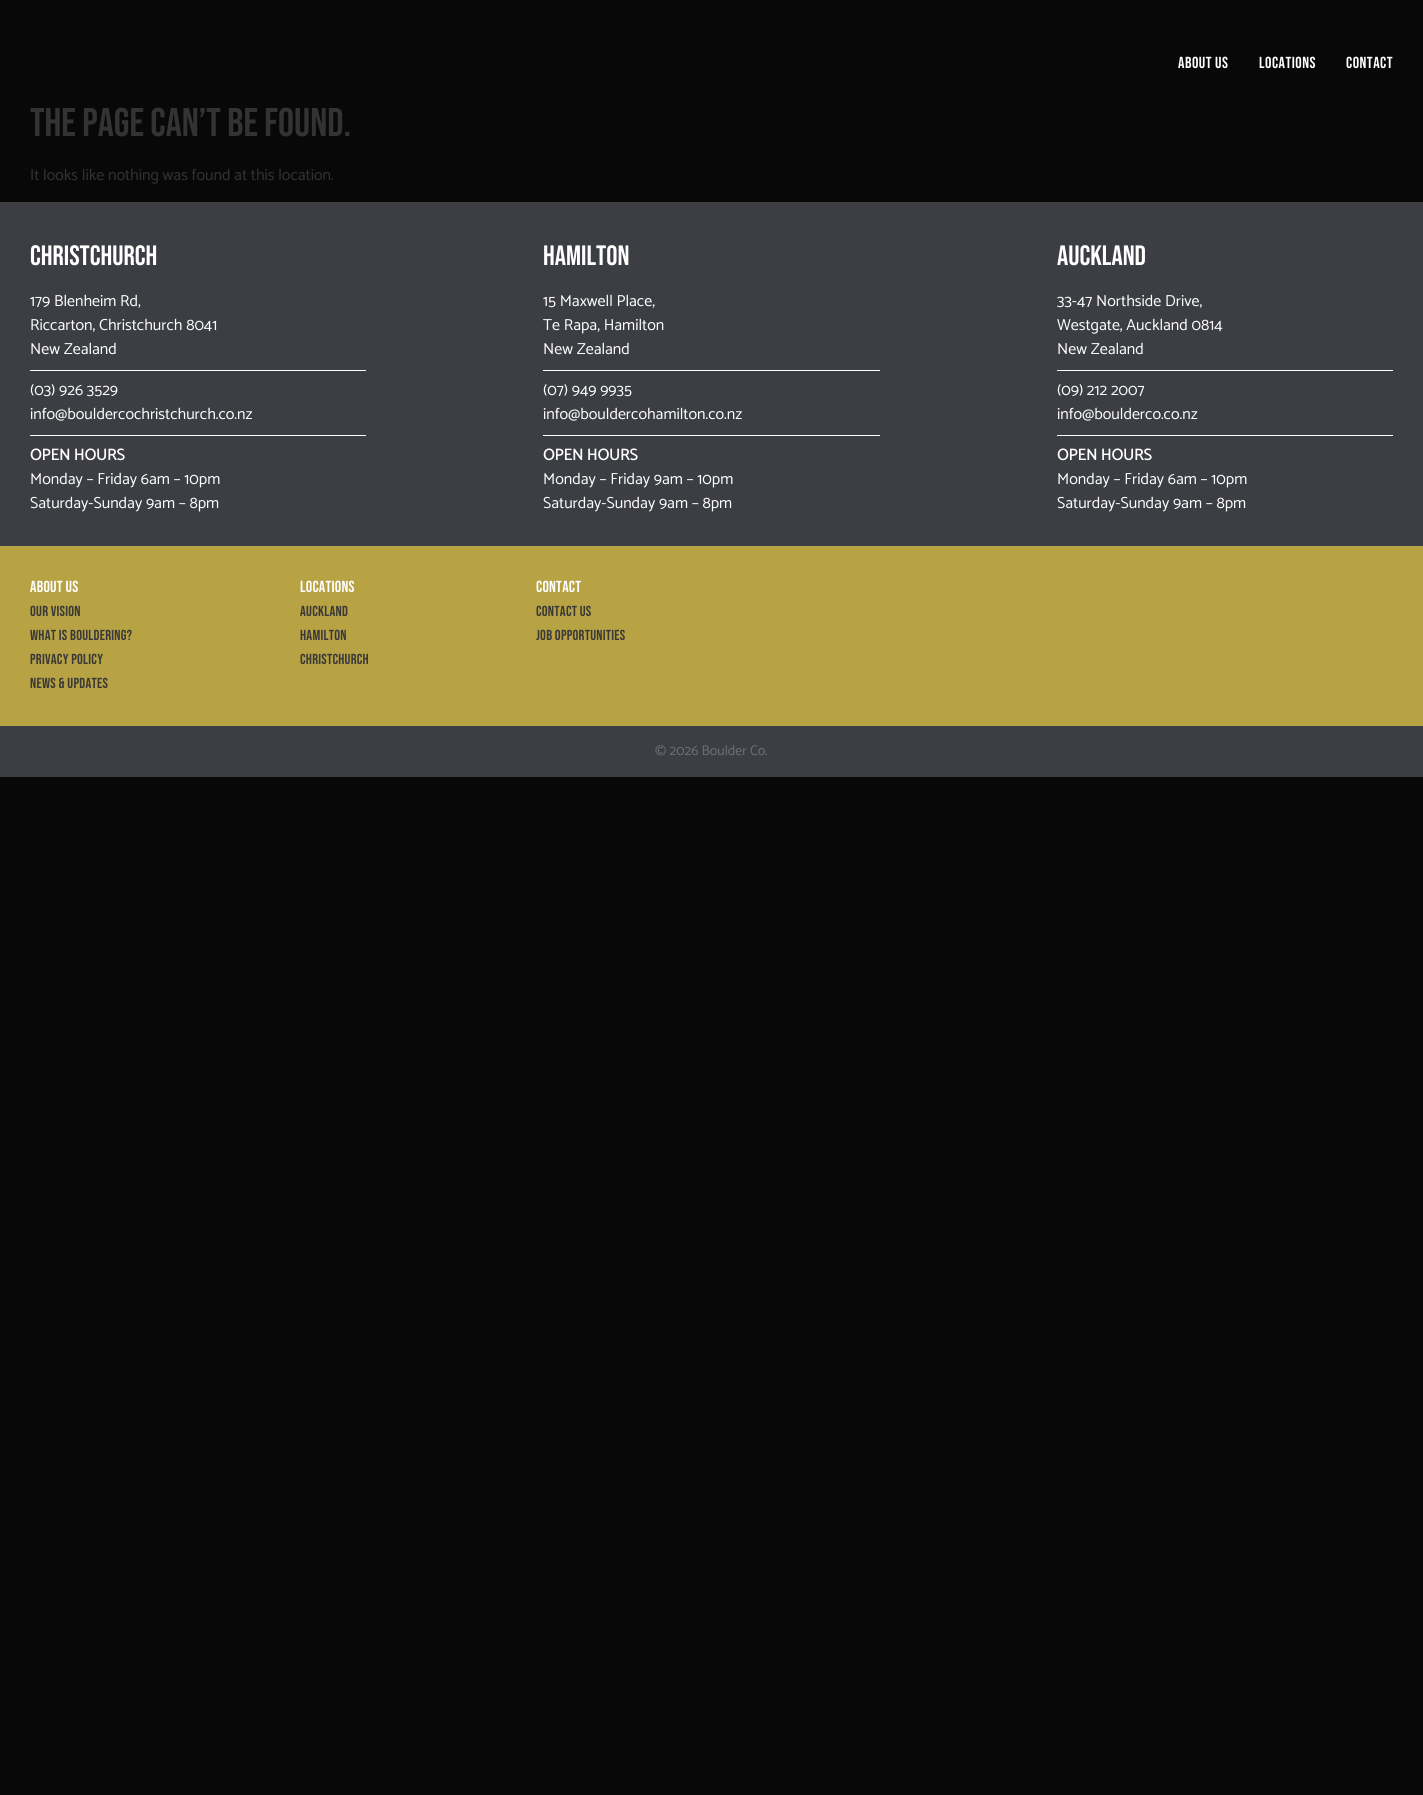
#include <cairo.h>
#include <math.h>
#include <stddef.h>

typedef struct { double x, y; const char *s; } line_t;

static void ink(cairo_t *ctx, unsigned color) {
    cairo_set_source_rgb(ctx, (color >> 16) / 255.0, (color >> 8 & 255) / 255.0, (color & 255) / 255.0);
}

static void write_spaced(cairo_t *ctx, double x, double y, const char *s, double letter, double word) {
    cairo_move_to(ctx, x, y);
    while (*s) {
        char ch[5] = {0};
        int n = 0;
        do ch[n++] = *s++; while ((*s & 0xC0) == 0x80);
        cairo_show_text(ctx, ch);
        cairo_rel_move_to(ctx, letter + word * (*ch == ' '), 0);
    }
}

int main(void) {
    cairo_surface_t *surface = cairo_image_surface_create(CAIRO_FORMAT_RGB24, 1423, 1795);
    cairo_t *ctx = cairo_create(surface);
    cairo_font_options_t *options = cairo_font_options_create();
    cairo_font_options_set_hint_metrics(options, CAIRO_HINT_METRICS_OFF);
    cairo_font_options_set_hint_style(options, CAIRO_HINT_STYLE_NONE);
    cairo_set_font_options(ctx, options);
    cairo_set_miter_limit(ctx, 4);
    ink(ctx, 0x080808);
    cairo_paint(ctx);
    cairo_select_font_face(ctx, "Bebas Neue", CAIRO_FONT_SLANT_NORMAL, CAIRO_FONT_WEIGHT_NORMAL);
    cairo_set_font_size(ctx, 16);
    ink(ctx, 0xFFFFFF);
    {
        static const line_t items[] = {
            {1178, 68, "About Us"},
            {1259, 68, "Locations"},
            {1346, 68, "Contact"},
        };
        for (size_t i = 0; i < sizeof items / sizeof *items; i++) {
            write_spaced(ctx, items[i].x, items[i].y, items[i].s, 0.5, 0);
        }
    }
    cairo_set_font_size(ctx, 40);
    ink(ctx, 0x333333);
    cairo_move_to(ctx, 30, 136);
    cairo_show_text(ctx, "The page can’t be found.");
    cairo_select_font_face(ctx, "Catamaran Thin", CAIRO_FONT_SLANT_NORMAL, CAIRO_FONT_WEIGHT_NORMAL);
    cairo_set_font_size(ctx, 16);
    cairo_move_to(ctx, 30, 180);
    cairo_show_text(ctx, "It looks like nothing was found at this location.");
    ink(ctx, 0x3C3E44);
    cairo_rectangle(ctx, 0, 202, 1423, 575);
    cairo_fill(ctx);
    cairo_select_font_face(ctx, "Bebas Neue", CAIRO_FONT_SLANT_NORMAL, CAIRO_FONT_WEIGHT_NORMAL);
    cairo_set_font_size(ctx, 28);
    ink(ctx, 0xFFFFFF);
    cairo_move_to(ctx, 30, 265);
    cairo_show_text(ctx, "Christchurch");
    cairo_select_font_face(ctx, "Catamaran Thin", CAIRO_FONT_SLANT_NORMAL, CAIRO_FONT_WEIGHT_NORMAL);
    cairo_set_font_size(ctx, 16);
    {
        static const line_t items[] = {
            {30, 306, "179 Blenheim Rd,"},
            {30, 330, "Riccarton, Christchurch 8041"},
            {30, 354, "New Zealand"},
        };
        for (size_t i = 0; i < sizeof items / sizeof *items; i++) {
            cairo_move_to(ctx, items[i].x, items[i].y);
            cairo_show_text(ctx, items[i].s);
        }
    }
    cairo_rectangle(ctx, 30, 370, 336, 1);
    cairo_fill(ctx);
    cairo_move_to(ctx, 30, 395);
    cairo_show_text(ctx, "(03) 926 3529");
    cairo_move_to(ctx, 30, 419);
    cairo_show_text(ctx, "info@bouldercochristchurch.co.nz");
    cairo_rectangle(ctx, 30, 435, 336, 1);
    cairo_fill(ctx);
    cairo_select_font_face(ctx, "Catamaran", CAIRO_FONT_SLANT_NORMAL, CAIRO_FONT_WEIGHT_BOLD);
    cairo_move_to(ctx, 30, 460);
    cairo_show_text(ctx, "OPEN HOURS");
    cairo_select_font_face(ctx, "Catamaran Thin", CAIRO_FONT_SLANT_NORMAL, CAIRO_FONT_WEIGHT_NORMAL);
    cairo_move_to(ctx, 30, 484);
    cairo_show_text(ctx, "Monday – Friday 6am – 10pm");
    cairo_move_to(ctx, 30, 508);
    cairo_show_text(ctx, "Saturday-Sunday 9am – 8pm");
    cairo_select_font_face(ctx, "Bebas Neue", CAIRO_FONT_SLANT_NORMAL, CAIRO_FONT_WEIGHT_NORMAL);
    cairo_set_font_size(ctx, 28);
    cairo_move_to(ctx, 543, 265);
    cairo_show_text(ctx, "Hamilton");
    cairo_select_font_face(ctx, "Catamaran Thin", CAIRO_FONT_SLANT_NORMAL, CAIRO_FONT_WEIGHT_NORMAL);
    cairo_set_font_size(ctx, 16);
    {
        static const line_t items[] = {
            {543, 306, "15 Maxwell Place,"},
            {543, 330, "Te Rapa, Hamilton"},
            {543, 354, "New Zealand"},
        };
        for (size_t i = 0; i < sizeof items / sizeof *items; i++) {
            cairo_move_to(ctx, items[i].x, items[i].y);
            cairo_show_text(ctx, items[i].s);
        }
    }
    cairo_rectangle(ctx, 543, 370, 337, 1);
    cairo_fill(ctx);
    cairo_move_to(ctx, 543, 395);
    cairo_show_text(ctx, "(07) 949 9935");
    cairo_move_to(ctx, 543, 419);
    cairo_show_text(ctx, "info@bouldercohamilton.co.nz");
    cairo_rectangle(ctx, 543, 435, 337, 1);
    cairo_fill(ctx);
    cairo_select_font_face(ctx, "Catamaran", CAIRO_FONT_SLANT_NORMAL, CAIRO_FONT_WEIGHT_BOLD);
    cairo_move_to(ctx, 543, 460);
    cairo_show_text(ctx, "OPEN HOURS");
    cairo_select_font_face(ctx, "Catamaran Thin", CAIRO_FONT_SLANT_NORMAL, CAIRO_FONT_WEIGHT_NORMAL);
    cairo_move_to(ctx, 543, 484);
    cairo_show_text(ctx, "Monday – Friday 9am – 10pm");
    cairo_move_to(ctx, 543, 508);
    cairo_show_text(ctx, "Saturday-Sunday 9am – 8pm");
    cairo_select_font_face(ctx, "Bebas Neue", CAIRO_FONT_SLANT_NORMAL, CAIRO_FONT_WEIGHT_NORMAL);
    cairo_set_font_size(ctx, 28);
    cairo_move_to(ctx, 1057, 265);
    cairo_show_text(ctx, "Auckland");
    cairo_select_font_face(ctx, "Catamaran Thin", CAIRO_FONT_SLANT_NORMAL, CAIRO_FONT_WEIGHT_NORMAL);
    cairo_set_font_size(ctx, 16);
    {
        static const line_t items[] = {
            {1057, 306, "33-47 Northside Drive,"},
            {1057, 330, "Westgate, Auckland 0814"},
            {1057, 354, "New Zealand"},
        };
        for (size_t i = 0; i < sizeof items / sizeof *items; i++) {
            cairo_move_to(ctx, items[i].x, items[i].y);
            cairo_show_text(ctx, items[i].s);
        }
    }
    cairo_rectangle(ctx, 1057, 370, 336, 1);
    cairo_fill(ctx);
    cairo_move_to(ctx, 1057, 395);
    cairo_show_text(ctx, "(09) 212 2007");
    cairo_move_to(ctx, 1057, 419);
    cairo_show_text(ctx, "info@boulderco.co.nz");
    cairo_rectangle(ctx, 1057, 435, 336, 1);
    cairo_fill(ctx);
    cairo_select_font_face(ctx, "Catamaran", CAIRO_FONT_SLANT_NORMAL, CAIRO_FONT_WEIGHT_BOLD);
    cairo_move_to(ctx, 1057, 460);
    cairo_show_text(ctx, "OPEN HOURS");
    cairo_select_font_face(ctx, "Catamaran Thin", CAIRO_FONT_SLANT_NORMAL, CAIRO_FONT_WEIGHT_NORMAL);
    cairo_move_to(ctx, 1057, 484);
    cairo_show_text(ctx, "Monday – Friday 6am – 10pm");
    cairo_move_to(ctx, 1057, 508);
    cairo_show_text(ctx, "Saturday-Sunday 9am – 8pm");
    ink(ctx, 0xB7A244);
    cairo_rectangle(ctx, 0, 546, 1423, 180);
    cairo_fill(ctx);
    cairo_select_font_face(ctx, "Bebas Neue", CAIRO_FONT_SLANT_NORMAL, CAIRO_FONT_WEIGHT_NORMAL);
    ink(ctx, 0xFFFFFF);
    write_spaced(ctx, 30, 592, "About Us", 0.25, 0);
    cairo_set_font_size(ctx, 14.5);
    ink(ctx, 0x3A3938);
    {
        static const line_t items[] = {
            {30, 616, "Our Vision"},
            {30, 640, "What is Bouldering?"},
            {30, 664, "Privacy Policy"},
            {30, 688, "News & Updates"},
        };
        for (size_t i = 0; i < sizeof items / sizeof *items; i++) {
            write_spaced(ctx, items[i].x, items[i].y, items[i].s, 0.25, 0);
        }
    }
    cairo_set_font_size(ctx, 16);
    ink(ctx, 0xFFFFFF);
    write_spaced(ctx, 300, 592, "Locations", 0.25, 0);
    cairo_set_font_size(ctx, 14.5);
    ink(ctx, 0x3A3938);
    {
        static const line_t items[] = {
            {300, 616, "Auckland"},
            {300, 640, "Hamilton"},
            {300, 664, "Christchurch"},
        };
        for (size_t i = 0; i < sizeof items / sizeof *items; i++) {
            write_spaced(ctx, items[i].x, items[i].y, items[i].s, 0.25, 0);
        }
    }
    cairo_set_font_size(ctx, 16);
    ink(ctx, 0xFFFFFF);
    write_spaced(ctx, 536, 592, "Contact", 0.25, 0);
    cairo_set_font_size(ctx, 14.5);
    ink(ctx, 0x3A3938);
    write_spaced(ctx, 536, 616, "Contact us", 0.25, 0);
    write_spaced(ctx, 536, 640, "Job Opportunities", 0.25, 0);
    cairo_select_font_face(ctx, "Catamaran Thin", CAIRO_FONT_SLANT_NORMAL, CAIRO_FONT_WEIGHT_NORMAL);
    cairo_set_font_size(ctx, 14);
    ink(ctx, 0x6C6F7A);
    cairo_move_to(ctx, 655, 755);
    cairo_show_text(ctx, "© 2026 Boulder Co.");
    cairo_surface_write_to_png(surface, "image.png");
    cairo_font_options_destroy(options);
    cairo_destroy(ctx);
    cairo_surface_destroy(surface);
    return 0;
}
